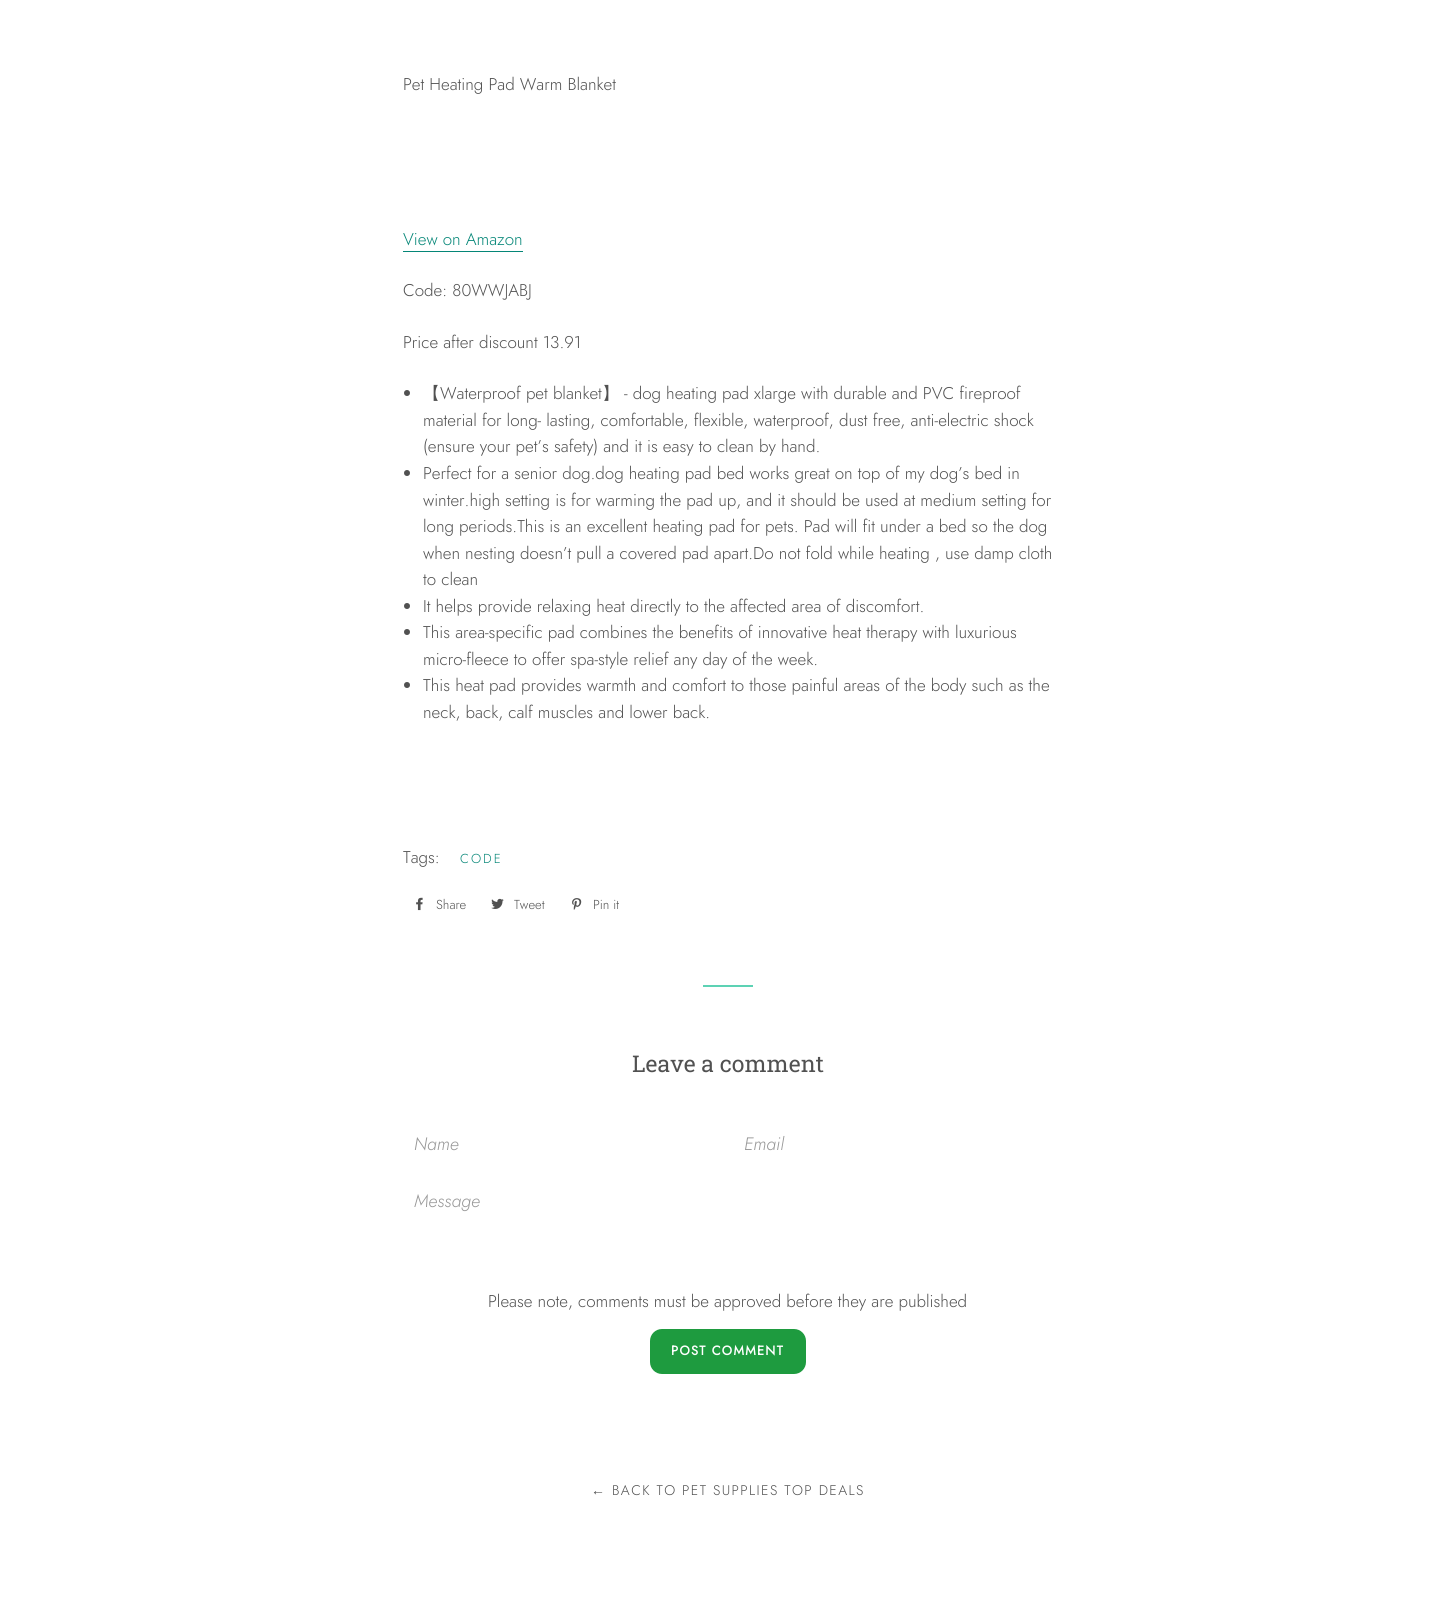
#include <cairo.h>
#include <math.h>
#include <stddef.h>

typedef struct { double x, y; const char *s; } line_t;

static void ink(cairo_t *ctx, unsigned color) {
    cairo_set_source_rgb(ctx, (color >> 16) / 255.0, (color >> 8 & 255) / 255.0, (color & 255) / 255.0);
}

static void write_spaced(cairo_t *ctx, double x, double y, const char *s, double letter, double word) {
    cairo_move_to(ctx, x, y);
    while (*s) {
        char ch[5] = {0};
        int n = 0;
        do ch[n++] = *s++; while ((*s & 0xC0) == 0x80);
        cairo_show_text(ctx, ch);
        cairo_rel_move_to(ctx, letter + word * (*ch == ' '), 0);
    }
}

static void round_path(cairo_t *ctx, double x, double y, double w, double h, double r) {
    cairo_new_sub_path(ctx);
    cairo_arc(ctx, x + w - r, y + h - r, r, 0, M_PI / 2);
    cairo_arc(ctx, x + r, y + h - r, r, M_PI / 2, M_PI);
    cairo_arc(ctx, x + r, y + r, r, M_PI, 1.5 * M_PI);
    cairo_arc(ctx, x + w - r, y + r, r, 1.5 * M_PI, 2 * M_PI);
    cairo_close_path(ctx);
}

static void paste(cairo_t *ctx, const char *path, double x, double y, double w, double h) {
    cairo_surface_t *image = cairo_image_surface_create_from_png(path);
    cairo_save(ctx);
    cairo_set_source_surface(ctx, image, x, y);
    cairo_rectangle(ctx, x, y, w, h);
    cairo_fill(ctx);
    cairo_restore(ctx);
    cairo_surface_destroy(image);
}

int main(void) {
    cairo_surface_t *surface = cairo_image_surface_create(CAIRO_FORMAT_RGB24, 1456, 1602);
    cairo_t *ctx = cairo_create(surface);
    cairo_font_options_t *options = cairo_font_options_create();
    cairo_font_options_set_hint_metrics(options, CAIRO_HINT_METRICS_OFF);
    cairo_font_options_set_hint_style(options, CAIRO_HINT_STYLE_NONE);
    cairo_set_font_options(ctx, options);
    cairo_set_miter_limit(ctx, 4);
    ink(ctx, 0xFFFFFF);
    cairo_paint(ctx);
    cairo_select_font_face(ctx, "Jost Light", CAIRO_FONT_SLANT_NORMAL, CAIRO_FONT_WEIGHT_NORMAL);
    cairo_set_font_size(ctx, 17);
    ink(ctx, 0x515151);
    cairo_move_to(ctx, 403, 90);
    cairo_show_text(ctx, "Pet Heating Pad Warm Blanket");
    ink(ctx, 0x058677);
    cairo_move_to(ctx, 403, 245);
    cairo_show_text(ctx, "View on Amazon");
    cairo_rectangle(ctx, 403, 251, 120, 1);
    cairo_fill(ctx);
    ink(ctx, 0x515151);
    cairo_move_to(ctx, 403, 296);
    cairo_show_text(ctx, "Code: 80WWJABJ");
    cairo_move_to(ctx, 403, 348);
    cairo_show_text(ctx, "Price after discount 13.91");
    cairo_new_path(ctx);
    cairo_arc(ctx, 407, 393, 3, 0, 2 * M_PI);
    cairo_fill(ctx);
    cairo_select_font_face(ctx, "WenQuanYi Zen Hei Medium", CAIRO_FONT_SLANT_NORMAL, CAIRO_FONT_WEIGHT_NORMAL);
    cairo_move_to(ctx, 423, 399);
    cairo_show_text(ctx, "【");
    cairo_select_font_face(ctx, "Jost Light", CAIRO_FONT_SLANT_NORMAL, CAIRO_FONT_WEIGHT_NORMAL);
    cairo_move_to(ctx, 440, 399);
    cairo_show_text(ctx, "Waterproof pet blanket");
    cairo_select_font_face(ctx, "WenQuanYi Zen Hei Medium", CAIRO_FONT_SLANT_NORMAL, CAIRO_FONT_WEIGHT_NORMAL);
    cairo_move_to(ctx, 602, 399);
    cairo_show_text(ctx, "】");
    cairo_select_font_face(ctx, "Jost Light", CAIRO_FONT_SLANT_NORMAL, CAIRO_FONT_WEIGHT_NORMAL);
    {
        static const line_t items[] = {
            {624, 399, "- dog heating pad xlarge with durable and PVC fireproof"},
            {423, 426, "material for long- lasting, comfortable, flexible, waterproof, dust free, anti-electric shock"},
            {423, 452, "(ensure your pet’s safety) and it is easy to clean by hand."},
        };
        for (size_t i = 0; i < sizeof items / sizeof *items; i++) {
            cairo_move_to(ctx, items[i].x, items[i].y);
            cairo_show_text(ctx, items[i].s);
        }
    }
    cairo_new_path(ctx);
    cairo_arc(ctx, 407, 473, 3, 0, 2 * M_PI);
    cairo_fill(ctx);
    {
        static const line_t items[] = {
            {423, 479, "Perfect for a senior dog.dog heating pad bed works great on top of my dog’s bed in"},
            {423, 506, "winter.high setting is for warming the pad up, and it should be used at medium setting for"},
            {423, 532, "long periods.This is an excellent heating pad for pets. Pad will fit under a bed so the dog"},
            {423, 559, "when nesting doesn’t pull a covered pad apart.Do not fold while heating , use damp cloth"},
            {423, 585, "to clean"},
        };
        for (size_t i = 0; i < sizeof items / sizeof *items; i++) {
            cairo_move_to(ctx, items[i].x, items[i].y);
            cairo_show_text(ctx, items[i].s);
        }
    }
    cairo_new_path(ctx);
    cairo_arc(ctx, 407, 606, 3, 0, 2 * M_PI);
    cairo_fill(ctx);
    cairo_move_to(ctx, 423, 612);
    cairo_show_text(ctx, "It helps provide relaxing heat directly to the affected area of discomfort.");
    cairo_new_path(ctx);
    cairo_arc(ctx, 407, 632, 3, 0, 2 * M_PI);
    cairo_fill(ctx);
    cairo_move_to(ctx, 423, 638);
    cairo_show_text(ctx, "This area-specific pad combines the benefits of innovative heat therapy with luxurious");
    cairo_move_to(ctx, 423, 665);
    cairo_show_text(ctx, "micro-fleece to offer spa-style relief any day of the week.");
    cairo_new_path(ctx);
    cairo_arc(ctx, 407, 685, 3, 0, 2 * M_PI);
    cairo_fill(ctx);
    {
        static const line_t items[] = {
            {423, 691, "This heat pad provides warmth and comfort to those painful areas of the body such as the"},
            {423, 718, "neck, back, calf muscles and lower back."},
            {403, 863, "Tags:"},
        };
        for (size_t i = 0; i < sizeof items / sizeof *items; i++) {
            cairo_move_to(ctx, items[i].x, items[i].y);
            cairo_show_text(ctx, items[i].s);
        }
    }
    cairo_set_font_size(ctx, 13);
    ink(ctx, 0x058677);
    write_spaced(ctx, 460, 863, "CODE", 2, 0);
    paste(ctx, "media/1.png", 416, 897, 7, 14);
    ink(ctx, 0x515151);
    cairo_move_to(ctx, 436, 909);
    cairo_show_text(ctx, "Share");
    paste(ctx, "media/2.png", 491, 898, 13, 11);
    cairo_move_to(ctx, 514, 909);
    cairo_show_text(ctx, "Tweet");
    paste(ctx, "media/3.png", 572, 898, 10, 12);
    cairo_move_to(ctx, 593, 909);
    cairo_show_text(ctx, "Pin it");
    ink(ctx, 0x5DD2B4);
    cairo_rectangle(ctx, 703, 985, 50, 2);
    cairo_fill(ctx);
    cairo_select_font_face(ctx, "Roboto Slab", CAIRO_FONT_SLANT_NORMAL, CAIRO_FONT_WEIGHT_NORMAL);
    cairo_set_font_size(ctx, 23);
    ink(ctx, 0x515151);
    cairo_move_to(ctx, 632, 1072);
    cairo_show_text(ctx, "Leave a comment");
    cairo_select_font_face(ctx, "Jost Light", CAIRO_FONT_SLANT_ITALIC, CAIRO_FONT_WEIGHT_NORMAL);
    cairo_set_font_size(ctx, 18);
    ink(ctx, 0x979797);
    {
        static const line_t items[] = {
            {414, 1150, "Name"},
            {744, 1150, "Email"},
            {414, 1207, "Message"},
        };
        for (size_t i = 0; i < sizeof items / sizeof *items; i++) {
            cairo_move_to(ctx, items[i].x, items[i].y);
            cairo_show_text(ctx, items[i].s);
        }
    }
    cairo_select_font_face(ctx, "Jost Light", CAIRO_FONT_SLANT_NORMAL, CAIRO_FONT_WEIGHT_NORMAL);
    cairo_set_font_size(ctx, 17);
    ink(ctx, 0x515151);
    cairo_move_to(ctx, 488, 1307);
    cairo_show_text(ctx, "Please note, comments must be approved before they are published");
    ink(ctx, 0x1E9B3F);
    round_path(ctx, 650, 1329, 156, 45, 12);
    cairo_fill(ctx);
    cairo_select_font_face(ctx, "Jost", CAIRO_FONT_SLANT_NORMAL, CAIRO_FONT_WEIGHT_BOLD);
    cairo_set_font_size(ctx, 13);
    ink(ctx, 0xFFFFFF);
    write_spaced(ctx, 671, 1355, "POST COMMENT", 1.25, 0);
    cairo_select_font_face(ctx, "Liberation Sans", CAIRO_FONT_SLANT_NORMAL, CAIRO_FONT_WEIGHT_NORMAL);
    cairo_set_font_size(ctx, 14);
    ink(ctx, 0x515151);
    write_spaced(ctx, 591, 1495, "←", 1.4, 0);
    cairo_select_font_face(ctx, "Jost Light", CAIRO_FONT_SLANT_NORMAL, CAIRO_FONT_WEIGHT_NORMAL);
    write_spaced(ctx, 612, 1495, "BACK TO PET SUPPLIES TOP DEALS", 1.4, 0);
    cairo_surface_write_to_png(surface, "image.png");
    cairo_font_options_destroy(options);
    cairo_destroy(ctx);
    cairo_surface_destroy(surface);
    return 0;
}
